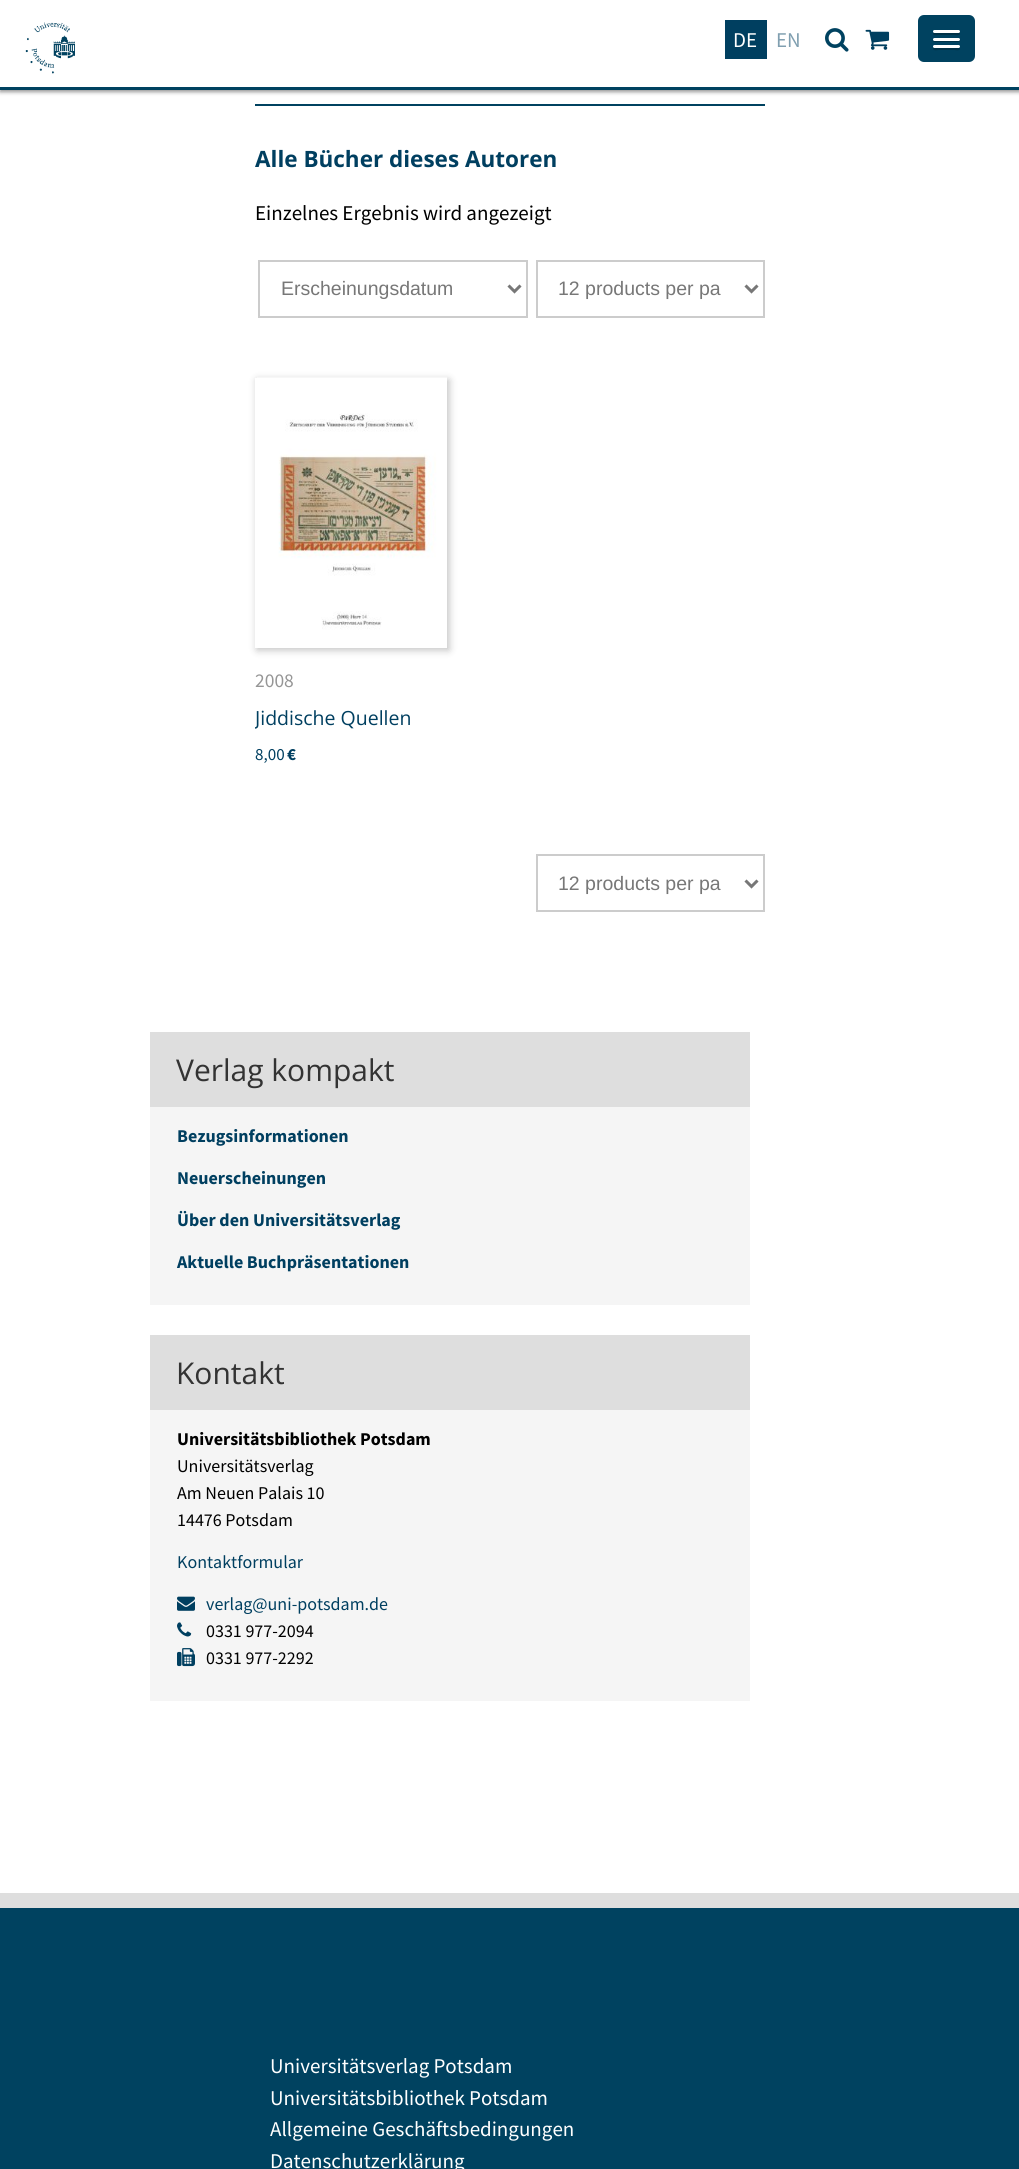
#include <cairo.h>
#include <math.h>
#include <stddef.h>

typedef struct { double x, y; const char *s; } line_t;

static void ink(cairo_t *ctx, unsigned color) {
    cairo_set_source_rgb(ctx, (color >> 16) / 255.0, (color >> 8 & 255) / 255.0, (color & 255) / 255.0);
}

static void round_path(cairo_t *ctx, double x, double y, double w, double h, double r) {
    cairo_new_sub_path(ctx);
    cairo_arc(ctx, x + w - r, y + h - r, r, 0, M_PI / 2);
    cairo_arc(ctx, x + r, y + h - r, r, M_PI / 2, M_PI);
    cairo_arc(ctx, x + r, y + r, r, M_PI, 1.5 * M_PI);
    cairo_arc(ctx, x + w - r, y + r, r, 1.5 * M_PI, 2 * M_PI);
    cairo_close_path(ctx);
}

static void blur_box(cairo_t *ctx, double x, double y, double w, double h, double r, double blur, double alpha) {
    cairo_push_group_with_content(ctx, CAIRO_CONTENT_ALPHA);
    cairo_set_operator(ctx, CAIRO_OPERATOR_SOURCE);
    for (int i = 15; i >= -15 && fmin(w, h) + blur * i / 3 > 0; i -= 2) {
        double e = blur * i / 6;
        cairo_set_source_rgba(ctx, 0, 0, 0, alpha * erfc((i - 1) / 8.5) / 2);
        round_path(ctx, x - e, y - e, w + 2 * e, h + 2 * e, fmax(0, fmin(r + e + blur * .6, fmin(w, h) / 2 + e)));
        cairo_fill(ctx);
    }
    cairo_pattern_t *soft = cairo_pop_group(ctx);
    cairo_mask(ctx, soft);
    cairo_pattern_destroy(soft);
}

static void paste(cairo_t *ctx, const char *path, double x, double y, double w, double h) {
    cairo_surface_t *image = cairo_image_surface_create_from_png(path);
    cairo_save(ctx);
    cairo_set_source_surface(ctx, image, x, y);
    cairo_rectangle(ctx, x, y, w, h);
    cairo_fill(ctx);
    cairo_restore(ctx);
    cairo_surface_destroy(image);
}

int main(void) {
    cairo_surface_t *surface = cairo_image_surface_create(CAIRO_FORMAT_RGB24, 1019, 2169);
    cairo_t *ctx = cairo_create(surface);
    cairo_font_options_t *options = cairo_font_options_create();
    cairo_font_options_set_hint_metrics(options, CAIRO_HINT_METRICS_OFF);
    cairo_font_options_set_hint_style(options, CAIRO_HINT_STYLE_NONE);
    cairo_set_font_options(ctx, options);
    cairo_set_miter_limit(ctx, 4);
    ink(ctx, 0xFFFFFF);
    cairo_paint(ctx);
    ink(ctx, 0x969696);
    blur_box(ctx, 0, 2, 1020, 90, 0, 2, 1);
    ink(ctx, 0xFFFFFF);
    cairo_rectangle(ctx, 0, 0, 1019, 87);
    cairo_fill(ctx);
    ink(ctx, 0x004260);
    cairo_rectangle(ctx, 0, 87, 1019, 3);
    cairo_fill(ctx);
    paste(ctx, "media/1.png", 25, 22, 50, 52);
    ink(ctx, 0x003F60);
    cairo_rectangle(ctx, 725, 20, 42, 39);
    cairo_fill(ctx);
    cairo_select_font_face(ctx, "Source Sans Pro", CAIRO_FONT_SLANT_NORMAL, CAIRO_FONT_WEIGHT_NORMAL);
    cairo_set_font_size(ctx, 21);
    ink(ctx, 0xFFFFFF);
    cairo_move_to(ctx, 733, 47);
    cairo_show_text(ctx, "DE");
    ink(ctx, 0x809FB0);
    cairo_move_to(ctx, 776, 47);
    cairo_show_text(ctx, "EN");
    paste(ctx, "media/2.png", 825, 28, 24, 24);
    paste(ctx, "media/3.png", 865, 29, 25, 21);
    ink(ctx, 0x004260);
    round_path(ctx, 918, 15, 57, 47, 6);
    cairo_fill(ctx);
    ink(ctx, 0x003248);
    cairo_new_path(ctx);
    cairo_move_to(ctx, 933.5, 32.5);
    cairo_line_to(ctx, 933, 34);
    cairo_curve_to(ctx, 933.5, 36, 938, 35, 938.5, 35);
    cairo_line_to(ctx, 954.5, 35);
    cairo_curve_to(ctx, 955, 35, 959.5, 36, 960, 34);
    cairo_line_to(ctx, 959.5, 32.5);
    cairo_line_to(ctx, 958.5, 33);
    cairo_line_to(ctx, 934.5, 33);
    cairo_close_path(ctx);
    cairo_fill(ctx);
    ink(ctx, 0xFFFFFF);
    round_path(ctx, 933, 30, 27, 3, 1.5);
    cairo_fill(ctx);
    ink(ctx, 0x003248);
    cairo_new_path(ctx);
    cairo_move_to(ctx, 933, 39.5);
    cairo_curve_to(ctx, 931.5, 43, 938.5, 42, 938.5, 42);
    cairo_line_to(ctx, 954.5, 42);
    cairo_curve_to(ctx, 954.5, 42, 961.5, 43, 960, 39.5);
    cairo_curve_to(ctx, 959.5, 40, 959, 40.5, 958.5, 40.5);
    cairo_line_to(ctx, 934.5, 40.5);
    cairo_curve_to(ctx, 934, 40.5, 933.5, 40, 933, 39.5);
    cairo_close_path(ctx);
    cairo_fill(ctx);
    ink(ctx, 0xFFFFFF);
    round_path(ctx, 933, 38, 27, 3, 1.5);
    cairo_fill(ctx);
    ink(ctx, 0x003248);
    cairo_new_path(ctx);
    cairo_move_to(ctx, 933.5, 47.5);
    cairo_line_to(ctx, 933, 49);
    cairo_curve_to(ctx, 933.5, 51, 938, 50, 938.5, 50);
    cairo_line_to(ctx, 954.5, 50);
    cairo_curve_to(ctx, 955, 50, 959.5, 51, 960, 49);
    cairo_line_to(ctx, 959.5, 47.5);
    cairo_line_to(ctx, 958.5, 48);
    cairo_line_to(ctx, 934.5, 48);
    cairo_close_path(ctx);
    cairo_fill(ctx);
    ink(ctx, 0xFFFFFF);
    round_path(ctx, 933, 45, 27, 3, 1.5);
    cairo_fill(ctx);
    ink(ctx, 0x004260);
    cairo_rectangle(ctx, 255, 104, 510, 2);
    cairo_fill(ctx);
    cairo_select_font_face(ctx, "Open Sans", CAIRO_FONT_SLANT_NORMAL, CAIRO_FONT_WEIGHT_BOLD);
    cairo_set_font_size(ctx, 22.5);
    ink(ctx, 0x003F60);
    cairo_move_to(ctx, 255, 167);
    cairo_show_text(ctx, "Alle Bücher dieses Autoren");
    cairo_select_font_face(ctx, "Source Sans Pro", CAIRO_FONT_SLANT_NORMAL, CAIRO_FONT_WEIGHT_NORMAL);
    cairo_set_font_size(ctx, 21);
    ink(ctx, 0x000000);
    cairo_move_to(ctx, 255, 220);
    cairo_show_text(ctx, "Einzelnes Ergebnis wird angezeigt");
    cairo_rectangle(ctx, 259, 261, 268, 56);
    ink(ctx, 0xCCCCCC);
    cairo_stroke(ctx);
    cairo_new_path(ctx);
    cairo_move_to(ctx, 508.5, 285.5);
    cairo_line_to(ctx, 514.5, 291.5);
    cairo_line_to(ctx, 520.5, 285.5);
    ink(ctx, 0x777777);
    cairo_set_line_width(ctx, 3);
    cairo_stroke(ctx);
    cairo_select_font_face(ctx, "Liberation Sans", CAIRO_FONT_SLANT_NORMAL, CAIRO_FONT_WEIGHT_NORMAL);
    cairo_set_font_size(ctx, 19.5);
    cairo_move_to(ctx, 281, 295);
    cairo_show_text(ctx, "Erscheinungsdatum");
    cairo_rectangle(ctx, 537, 261, 227, 56);
    ink(ctx, 0xCCCCCC);
    cairo_set_line_width(ctx, 2);
    cairo_stroke(ctx);
    cairo_new_path(ctx);
    cairo_move_to(ctx, 745.5, 285.5);
    cairo_line_to(ctx, 751.5, 291.5);
    cairo_line_to(ctx, 757.5, 285.5);
    ink(ctx, 0x777777);
    cairo_set_line_width(ctx, 3);
    cairo_stroke(ctx);
    cairo_move_to(ctx, 558, 295);
    cairo_show_text(ctx, "12 products per pa");
    cairo_save(ctx);
    cairo_set_fill_rule(ctx, CAIRO_FILL_RULE_EVEN_ODD);
    cairo_new_path(ctx);
    cairo_move_to(ctx, 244, 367);
    cairo_line_to(ctx, 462, 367);
    cairo_line_to(ctx, 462, 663);
    cairo_line_to(ctx, 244, 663);
    cairo_close_path(ctx);
    cairo_move_to(ctx, 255, 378);
    cairo_line_to(ctx, 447, 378);
    cairo_line_to(ctx, 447, 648);
    cairo_line_to(ctx, 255, 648);
    cairo_close_path(ctx);
    cairo_clip(ctx);
    ink(ctx, 0x000000);
    blur_box(ctx, 257, 380, 192, 270, 0, 4, 0.25);
    cairo_restore(ctx);
    paste(ctx, "media/4.png", 257, 377, 190, 253);
    cairo_select_font_face(ctx, "Source Sans Pro", CAIRO_FONT_SLANT_NORMAL, CAIRO_FONT_WEIGHT_NORMAL);
    ink(ctx, 0x969696);
    cairo_move_to(ctx, 255, 687);
    cairo_show_text(ctx, "2008");
    cairo_save(ctx);
    cairo_rectangle(ctx, 255, 695, 245, 46);
    cairo_clip(ctx);
    cairo_select_font_face(ctx, "Open Sans", CAIRO_FONT_SLANT_NORMAL, CAIRO_FONT_WEIGHT_NORMAL);
    ink(ctx, 0x003F60);
    cairo_move_to(ctx, 255, 725);
    cairo_show_text(ctx, "Jiddische Quellen");
    cairo_restore(ctx);
    cairo_set_font_size(ctx, 17);
    ink(ctx, 0x003F60);
    cairo_move_to(ctx, 255, 760);
    cairo_show_text(ctx, "8,00");
    cairo_select_font_face(ctx, "Source Sans Pro", CAIRO_FONT_SLANT_NORMAL, CAIRO_FONT_WEIGHT_BOLD);
    cairo_move_to(ctx, 287, 760);
    cairo_show_text(ctx, "€");
    cairo_rectangle(ctx, 537, 855, 227, 56);
    ink(ctx, 0xCCCCCC);
    cairo_set_line_width(ctx, 2);
    cairo_stroke(ctx);
    cairo_new_path(ctx);
    cairo_move_to(ctx, 745.5, 880.5);
    cairo_line_to(ctx, 751.5, 886.5);
    cairo_line_to(ctx, 757.5, 880.5);
    ink(ctx, 0x777777);
    cairo_set_line_width(ctx, 3);
    cairo_stroke(ctx);
    cairo_select_font_face(ctx, "Liberation Sans", CAIRO_FONT_SLANT_NORMAL, CAIRO_FONT_WEIGHT_NORMAL);
    cairo_set_font_size(ctx, 19.5);
    cairo_move_to(ctx, 558, 890);
    cairo_show_text(ctx, "12 products per pa");
    ink(ctx, 0xDEDEDE);
    cairo_rectangle(ctx, 150, 1032, 600, 75);
    cairo_fill(ctx);
    cairo_select_font_face(ctx, "Open Sans", CAIRO_FONT_SLANT_NORMAL, CAIRO_FONT_WEIGHT_NORMAL);
    cairo_set_font_size(ctx, 30);
    ink(ctx, 0x333333);
    cairo_move_to(ctx, 176, 1081);
    cairo_show_text(ctx, "Verlag kompakt");
    ink(ctx, 0xF5F5F5);
    cairo_rectangle(ctx, 150, 1107, 600, 198);
    cairo_fill(ctx);
    cairo_select_font_face(ctx, "Source Sans Pro", CAIRO_FONT_SLANT_NORMAL, CAIRO_FONT_WEIGHT_BOLD);
    cairo_set_font_size(ctx, 18);
    ink(ctx, 0x003F60);
    {
        static const line_t items[] = {
            {177, 1142, "Bezugsinformationen"},
            {177, 1184, "Neuerscheinungen"},
            {177, 1226, "Über den Universitätsverlag"},
            {177, 1268, "Aktuelle Buchpräsentationen"},
        };
        for (size_t i = 0; i < sizeof items / sizeof *items; i++) {
            cairo_move_to(ctx, items[i].x, items[i].y);
            cairo_show_text(ctx, items[i].s);
        }
    }
    ink(ctx, 0xDEDEDE);
    cairo_rectangle(ctx, 150, 1335, 600, 75);
    cairo_fill(ctx);
    cairo_select_font_face(ctx, "Open Sans", CAIRO_FONT_SLANT_NORMAL, CAIRO_FONT_WEIGHT_NORMAL);
    cairo_set_font_size(ctx, 30);
    ink(ctx, 0x333333);
    cairo_move_to(ctx, 176, 1384);
    cairo_show_text(ctx, "Kontakt");
    ink(ctx, 0xF5F5F5);
    cairo_rectangle(ctx, 150, 1410, 600, 291);
    cairo_fill(ctx);
    cairo_select_font_face(ctx, "Source Sans Pro", CAIRO_FONT_SLANT_NORMAL, CAIRO_FONT_WEIGHT_BOLD);
    cairo_set_font_size(ctx, 18);
    ink(ctx, 0x000000);
    cairo_move_to(ctx, 177, 1445);
    cairo_show_text(ctx, "Universitätsbibliothek Potsdam");
    cairo_select_font_face(ctx, "Source Sans Pro", CAIRO_FONT_SLANT_NORMAL, CAIRO_FONT_WEIGHT_NORMAL);
    {
        static const line_t items[] = {
            {177, 1472, "Universitätsverlag"},
            {177, 1499, "Am Neuen Palais 10"},
            {177, 1526, "14476 Potsdam"},
        };
        for (size_t i = 0; i < sizeof items / sizeof *items; i++) {
            cairo_move_to(ctx, items[i].x, items[i].y);
            cairo_show_text(ctx, items[i].s);
        }
    }
    ink(ctx, 0x003F60);
    cairo_move_to(ctx, 177, 1568);
    cairo_show_text(ctx, "Kontaktformular");
    paste(ctx, "media/5.png", 177, 1596, 18, 15);
    cairo_move_to(ctx, 206, 1610);
    cairo_show_text(ctx, "verlag@uni-potsdam.de");
    paste(ctx, "media/6.png", 177, 1622, 15, 15);
    ink(ctx, 0x000000);
    cairo_move_to(ctx, 206, 1637);
    cairo_show_text(ctx, "0331 977-2094");
    paste(ctx, "media/7.png", 177, 1648, 18, 19);
    cairo_move_to(ctx, 206, 1664);
    cairo_show_text(ctx, "0331 977-2292");
    ink(ctx, 0x004260);
    cairo_rectangle(ctx, 0, 1908, 1019, 261);
    cairo_fill(ctx);
    ink(ctx, 0xDEDEDE);
    cairo_rectangle(ctx, 0, 1893, 1019, 15);
    cairo_fill(ctx);
    cairo_set_font_size(ctx, 21);
    ink(ctx, 0xFFFFFF);
    {
        static const line_t items[] = {
            {270, 2073, "Universitätsverlag Potsdam"},
            {270, 2105, "Universitätsbibliothek Potsdam"},
            {270, 2136, "Allgemeine Geschäftsbedingungen"},
            {270, 2168, "Datenschutzerklärung"},
        };
        for (size_t i = 0; i < sizeof items / sizeof *items; i++) {
            cairo_move_to(ctx, items[i].x, items[i].y);
            cairo_show_text(ctx, items[i].s);
        }
    }
    cairo_surface_write_to_png(surface, "image.png");
    cairo_font_options_destroy(options);
    cairo_destroy(ctx);
    cairo_surface_destroy(surface);
    return 0;
}
